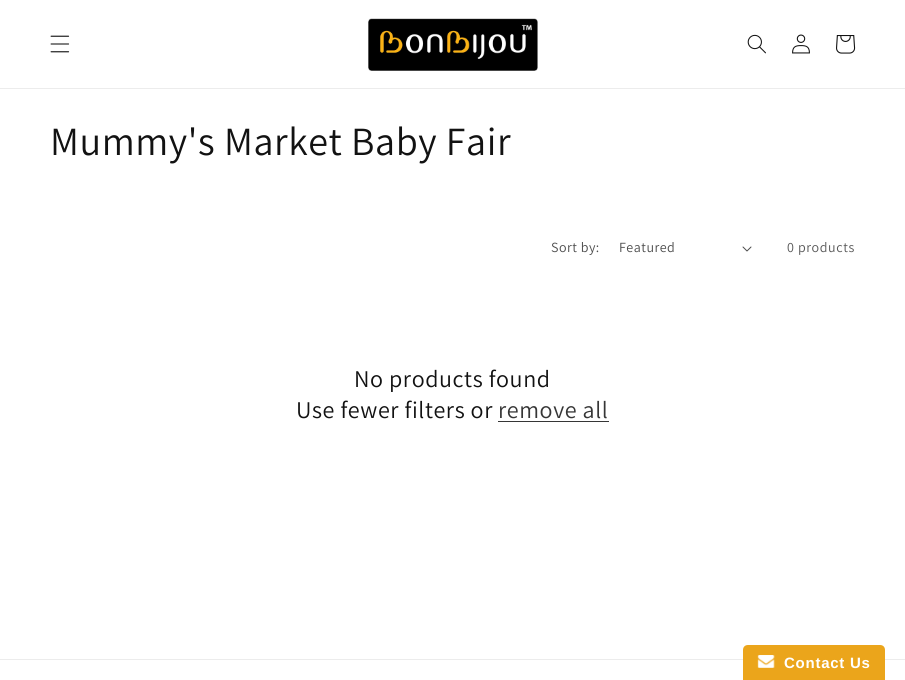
#include <cairo.h>
#include <math.h>
#include <stddef.h>


static void ink(cairo_t *ctx, unsigned color) {
    cairo_set_source_rgb(ctx, (color >> 16) / 255.0, (color >> 8 & 255) / 255.0, (color & 255) / 255.0);
}

static void write_spaced(cairo_t *ctx, double x, double y, const char *s, double letter, double word) {
    cairo_move_to(ctx, x, y);
    while (*s) {
        char ch[5] = {0};
        int n = 0;
        do ch[n++] = *s++; while ((*s & 0xC0) == 0x80);
        cairo_show_text(ctx, ch);
        cairo_rel_move_to(ctx, letter + word * (*ch == ' '), 0);
    }
}

static void paste(cairo_t *ctx, const char *path, double x, double y, double w, double h) {
    cairo_surface_t *image = cairo_image_surface_create_from_png(path);
    cairo_save(ctx);
    cairo_set_source_surface(ctx, image, x, y);
    cairo_rectangle(ctx, x, y, w, h);
    cairo_fill(ctx);
    cairo_restore(ctx);
    cairo_surface_destroy(image);
}

int main(void) {
    cairo_surface_t *surface = cairo_image_surface_create(CAIRO_FORMAT_RGB24, 905, 680);
    cairo_t *ctx = cairo_create(surface);
    cairo_font_options_t *options = cairo_font_options_create();
    cairo_font_options_set_hint_metrics(options, CAIRO_HINT_METRICS_OFF);
    cairo_font_options_set_hint_style(options, CAIRO_HINT_STYLE_NONE);
    cairo_set_font_options(ctx, options);
    cairo_set_miter_limit(ctx, 4);
    ink(ctx, 0xFFFFFF);
    cairo_paint(ctx);
    ink(ctx, 0xECECEC);
    cairo_rectangle(ctx, 0, 88, 905, 1);
    cairo_fill(ctx);
    paste(ctx, "media/1.png", 50, 35, 20, 18);
    paste(ctx, "media/2.png", 368, 18, 170, 53);
    paste(ctx, "media/3.png", 747, 34, 19, 20);
    paste(ctx, "media/4.png", 792, 34, 18, 20);
    paste(ctx, "media/5.png", 836, 35, 20, 19);
    cairo_select_font_face(ctx, "Assistant", CAIRO_FONT_SLANT_NORMAL, CAIRO_FONT_WEIGHT_NORMAL);
    cairo_set_font_size(ctx, 40);
    ink(ctx, 0x121212);
    write_spaced(ctx, 50, 155, "Mummy's Market Baby Fair", 0.6, 0);
    cairo_set_font_size(ctx, 14);
    ink(ctx, 0x4D4D4D);
    write_spaced(ctx, 551, 252, "Sort by:", 0.5, 0);
    write_spaced(ctx, 619, 252, "Featured", 0.5, 0);
    paste(ctx, "media/6.png", 742, 246, 10, 6);
    ink(ctx, 0x595959);
    write_spaced(ctx, 787, 252, "0 products", 0.6, 0);
    cairo_set_font_size(ctx, 24);
    ink(ctx, 0x121212);
    write_spaced(ctx, 354, 387, "No products found", 0.6, 0);
    write_spaced(ctx, 296, 418, "Use fewer filters or", 0.6, 0);
    ink(ctx, 0x363636);
    write_spaced(ctx, 498, 418, "remove all", 0.6, 0);
    cairo_rectangle(ctx, 498, 421, 111, 1);
    cairo_fill(ctx);
    ink(ctx, 0xECECEC);
    cairo_rectangle(ctx, 0, 659, 905, 1);
    cairo_fill(ctx);
    ink(ctx, 0xEBA51B);
    cairo_new_path(ctx);
    cairo_move_to(ctx, 748, 645);
    cairo_line_to(ctx, 880, 645);
    cairo_curve_to(ctx, 883, 645, 885, 647, 885, 650);
    cairo_line_to(ctx, 885, 680);
    cairo_line_to(ctx, 743, 680);
    cairo_line_to(ctx, 743, 650);
    cairo_curve_to(ctx, 743, 647, 745, 645, 748, 645);
    cairo_close_path(ctx);
    cairo_fill(ctx);
    paste(ctx, "media/7.png", 757, 655, 18, 13);
    cairo_select_font_face(ctx, "Liberation Sans", CAIRO_FONT_SLANT_NORMAL, CAIRO_FONT_WEIGHT_BOLD);
    cairo_set_font_size(ctx, 15);
    ink(ctx, 0xFFFFFF);
    write_spaced(ctx, 784, 668, "Contact Us", 0.75, 0);
    cairo_surface_write_to_png(surface, "image.png");
    cairo_font_options_destroy(options);
    cairo_destroy(ctx);
    cairo_surface_destroy(surface);
    return 0;
}
